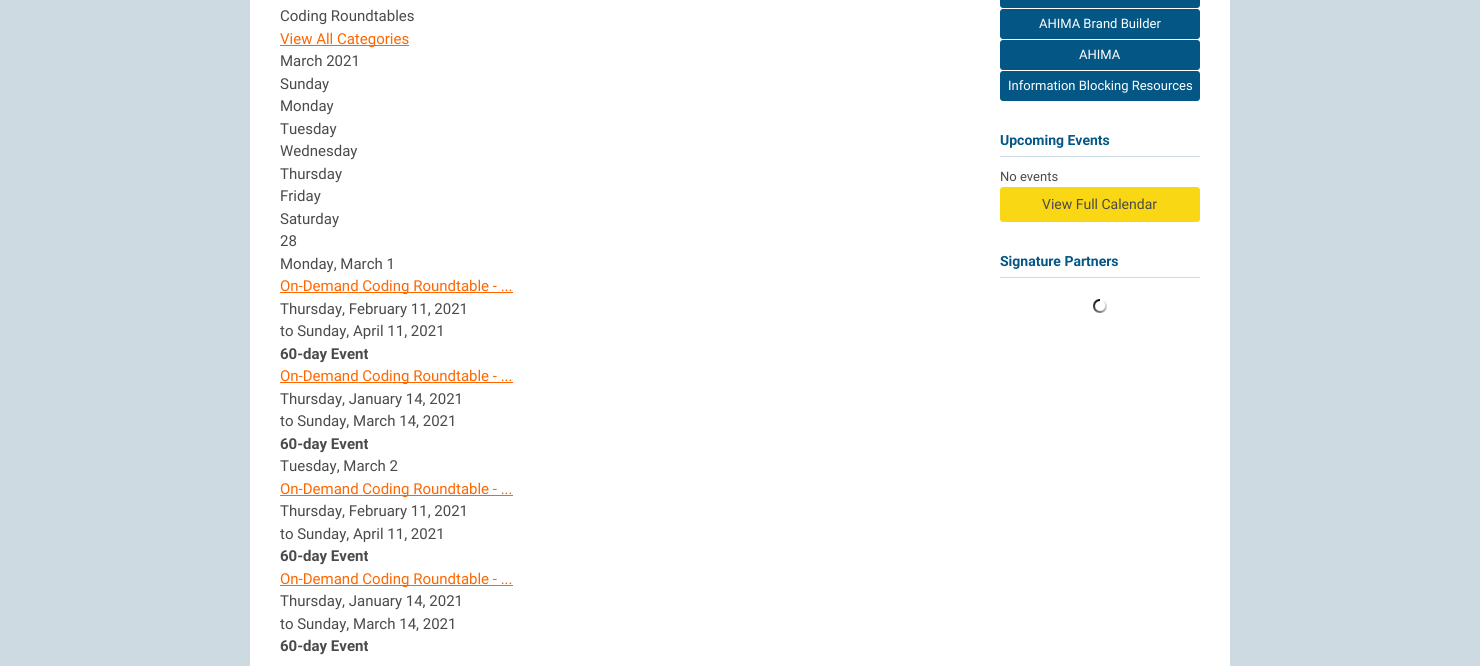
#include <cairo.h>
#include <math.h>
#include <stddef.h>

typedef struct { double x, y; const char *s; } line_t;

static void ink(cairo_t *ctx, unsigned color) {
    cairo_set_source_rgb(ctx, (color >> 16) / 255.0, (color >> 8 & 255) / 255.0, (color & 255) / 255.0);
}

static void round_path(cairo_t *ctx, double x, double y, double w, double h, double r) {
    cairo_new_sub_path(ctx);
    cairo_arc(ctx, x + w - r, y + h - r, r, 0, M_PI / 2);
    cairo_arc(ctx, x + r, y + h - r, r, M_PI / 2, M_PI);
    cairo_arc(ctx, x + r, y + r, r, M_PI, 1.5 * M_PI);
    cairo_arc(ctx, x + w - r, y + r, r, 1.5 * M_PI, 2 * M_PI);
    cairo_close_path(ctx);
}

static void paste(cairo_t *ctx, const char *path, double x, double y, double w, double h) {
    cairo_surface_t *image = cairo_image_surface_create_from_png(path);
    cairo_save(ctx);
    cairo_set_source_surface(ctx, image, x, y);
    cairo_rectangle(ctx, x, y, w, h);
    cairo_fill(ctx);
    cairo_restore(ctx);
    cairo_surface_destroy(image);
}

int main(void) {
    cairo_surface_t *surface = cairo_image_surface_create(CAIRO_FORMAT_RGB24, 1480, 666);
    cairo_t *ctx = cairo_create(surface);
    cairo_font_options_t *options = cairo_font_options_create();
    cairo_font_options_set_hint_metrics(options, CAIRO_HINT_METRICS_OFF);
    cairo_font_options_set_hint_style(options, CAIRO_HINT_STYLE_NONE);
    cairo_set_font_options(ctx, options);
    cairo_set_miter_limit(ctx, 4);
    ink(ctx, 0xCEDAE1);
    cairo_paint(ctx);
    ink(ctx, 0xFFFFFF);
    cairo_rectangle(ctx, 250, 0, 980, 666);
    cairo_fill(ctx);
    cairo_select_font_face(ctx, "Roboto", CAIRO_FONT_SLANT_NORMAL, CAIRO_FONT_WEIGHT_NORMAL);
    cairo_set_font_size(ctx, 15);
    ink(ctx, 0x4A4A4A);
    cairo_move_to(ctx, 280, 21);
    cairo_show_text(ctx, "Coding Roundtables");
    ink(ctx, 0xFF6600);
    cairo_rectangle(ctx, 280, 45, 129, 1);
    cairo_fill(ctx);
    cairo_move_to(ctx, 280, 44);
    cairo_show_text(ctx, "View All Categories");
    ink(ctx, 0x4A4A4A);
    {
        static const line_t items[] = {
            {280, 66, "March 2021"},
            {280, 89, "Sunday"},
            {280, 111, "Monday"},
            {280, 134, "Tuesday"},
            {280, 156, "Wednesday"},
            {280, 179, "Thursday"},
            {280, 201, "Friday"},
            {280, 224, "Saturday"},
            {280, 246, "28"},
            {280, 269, "Monday, March 1"},
        };
        for (size_t i = 0; i < sizeof items / sizeof *items; i++) {
            cairo_move_to(ctx, items[i].x, items[i].y);
            cairo_show_text(ctx, items[i].s);
        }
    }
    ink(ctx, 0xFF6600);
    cairo_rectangle(ctx, 280, 292, 233, 1);
    cairo_fill(ctx);
    cairo_move_to(ctx, 280, 291);
    cairo_show_text(ctx, "On-Demand Coding Roundtable - ...");
    ink(ctx, 0x4A4A4A);
    cairo_move_to(ctx, 280, 314);
    cairo_show_text(ctx, "Thursday, February 11, 2021");
    cairo_move_to(ctx, 280, 336);
    cairo_show_text(ctx, "to Sunday, April 11, 2021");
    cairo_select_font_face(ctx, "Roboto", CAIRO_FONT_SLANT_NORMAL, CAIRO_FONT_WEIGHT_BOLD);
    cairo_move_to(ctx, 280, 359);
    cairo_show_text(ctx, "60-day Event");
    ink(ctx, 0xFF6600);
    cairo_rectangle(ctx, 280, 382, 233, 1);
    cairo_fill(ctx);
    cairo_select_font_face(ctx, "Roboto", CAIRO_FONT_SLANT_NORMAL, CAIRO_FONT_WEIGHT_NORMAL);
    cairo_move_to(ctx, 280, 381);
    cairo_show_text(ctx, "On-Demand Coding Roundtable - ...");
    ink(ctx, 0x4A4A4A);
    cairo_move_to(ctx, 280, 404);
    cairo_show_text(ctx, "Thursday, January 14, 2021");
    cairo_move_to(ctx, 280, 426);
    cairo_show_text(ctx, "to Sunday, March 14, 2021");
    cairo_select_font_face(ctx, "Roboto", CAIRO_FONT_SLANT_NORMAL, CAIRO_FONT_WEIGHT_BOLD);
    cairo_move_to(ctx, 280, 449);
    cairo_show_text(ctx, "60-day Event");
    cairo_select_font_face(ctx, "Roboto", CAIRO_FONT_SLANT_NORMAL, CAIRO_FONT_WEIGHT_NORMAL);
    cairo_move_to(ctx, 280, 471);
    cairo_show_text(ctx, "Tuesday, March 2");
    ink(ctx, 0xFF6600);
    cairo_rectangle(ctx, 280, 495, 233, 1);
    cairo_fill(ctx);
    cairo_move_to(ctx, 280, 494);
    cairo_show_text(ctx, "On-Demand Coding Roundtable - ...");
    ink(ctx, 0x4A4A4A);
    cairo_move_to(ctx, 280, 516);
    cairo_show_text(ctx, "Thursday, February 11, 2021");
    cairo_move_to(ctx, 280, 539);
    cairo_show_text(ctx, "to Sunday, April 11, 2021");
    cairo_select_font_face(ctx, "Roboto", CAIRO_FONT_SLANT_NORMAL, CAIRO_FONT_WEIGHT_BOLD);
    cairo_move_to(ctx, 280, 561);
    cairo_show_text(ctx, "60-day Event");
    ink(ctx, 0xFF6600);
    cairo_rectangle(ctx, 280, 585, 233, 1);
    cairo_fill(ctx);
    cairo_select_font_face(ctx, "Roboto", CAIRO_FONT_SLANT_NORMAL, CAIRO_FONT_WEIGHT_NORMAL);
    cairo_move_to(ctx, 280, 584);
    cairo_show_text(ctx, "On-Demand Coding Roundtable - ...");
    ink(ctx, 0x4A4A4A);
    cairo_move_to(ctx, 280, 606);
    cairo_show_text(ctx, "Thursday, January 14, 2021");
    cairo_move_to(ctx, 280, 629);
    cairo_show_text(ctx, "to Sunday, March 14, 2021");
    cairo_select_font_face(ctx, "Roboto", CAIRO_FONT_SLANT_NORMAL, CAIRO_FONT_WEIGHT_BOLD);
    cairo_move_to(ctx, 280, 651);
    cairo_show_text(ctx, "60-day Event");
    ink(ctx, 0x045685);
    round_path(ctx, 1000, -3, 200, 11, 3);
    cairo_fill(ctx);
    round_path(ctx, 1000, 9, 200, 30, 3);
    cairo_fill(ctx);
    cairo_select_font_face(ctx, "Roboto", CAIRO_FONT_SLANT_NORMAL, CAIRO_FONT_WEIGHT_NORMAL);
    cairo_set_font_size(ctx, 13);
    ink(ctx, 0xFFFFFF);
    cairo_move_to(ctx, 1039, 28);
    cairo_show_text(ctx, "AHIMA Brand Builder");
    ink(ctx, 0x045685);
    round_path(ctx, 1000, 40, 200, 30, 3);
    cairo_fill(ctx);
    ink(ctx, 0xFFFFFF);
    cairo_move_to(ctx, 1079, 59);
    cairo_show_text(ctx, "AHIMA");
    ink(ctx, 0x045685);
    round_path(ctx, 1000, 71, 200, 30, 3);
    cairo_fill(ctx);
    ink(ctx, 0xFFFFFF);
    cairo_move_to(ctx, 1008, 90);
    cairo_show_text(ctx, "Information Blocking Resources");
    ink(ctx, 0xCEDAE1);
    cairo_rectangle(ctx, 1000, 156, 200, 1);
    cairo_fill(ctx);
    cairo_select_font_face(ctx, "Roboto", CAIRO_FONT_SLANT_NORMAL, CAIRO_FONT_WEIGHT_BOLD);
    cairo_set_font_size(ctx, 14);
    ink(ctx, 0x045685);
    cairo_move_to(ctx, 1000, 145);
    cairo_show_text(ctx, "Upcoming Events");
    cairo_select_font_face(ctx, "Roboto", CAIRO_FONT_SLANT_NORMAL, CAIRO_FONT_WEIGHT_NORMAL);
    cairo_set_font_size(ctx, 13);
    ink(ctx, 0x4A4A4A);
    cairo_move_to(ctx, 1000, 181);
    cairo_show_text(ctx, "No events");
    ink(ctx, 0xF9D714);
    round_path(ctx, 1000, 187, 200, 35, 3);
    cairo_fill(ctx);
    cairo_set_font_size(ctx, 14);
    ink(ctx, 0x4A4A4A);
    cairo_move_to(ctx, 1042, 209);
    cairo_show_text(ctx, "View Full Calendar");
    ink(ctx, 0xCEDAE1);
    cairo_rectangle(ctx, 1000, 277, 200, 1);
    cairo_fill(ctx);
    cairo_select_font_face(ctx, "Roboto", CAIRO_FONT_SLANT_NORMAL, CAIRO_FONT_WEIGHT_BOLD);
    ink(ctx, 0x045685);
    cairo_move_to(ctx, 1000, 266);
    cairo_show_text(ctx, "Signature Partners");
    paste(ctx, "media/1.png", 1093, 299, 14, 14);
    cairo_surface_write_to_png(surface, "image.png");
    cairo_font_options_destroy(options);
    cairo_destroy(ctx);
    cairo_surface_destroy(surface);
    return 0;
}
